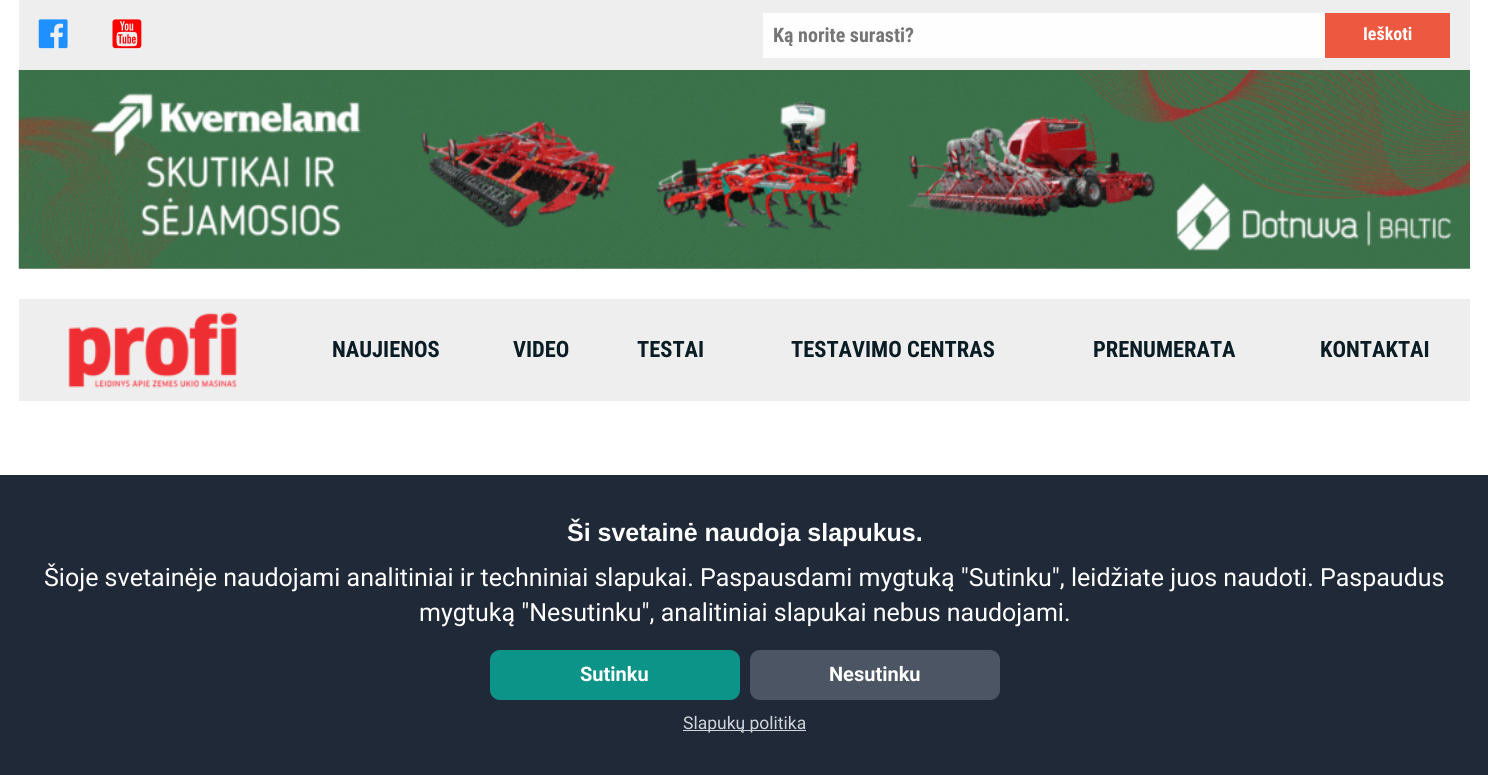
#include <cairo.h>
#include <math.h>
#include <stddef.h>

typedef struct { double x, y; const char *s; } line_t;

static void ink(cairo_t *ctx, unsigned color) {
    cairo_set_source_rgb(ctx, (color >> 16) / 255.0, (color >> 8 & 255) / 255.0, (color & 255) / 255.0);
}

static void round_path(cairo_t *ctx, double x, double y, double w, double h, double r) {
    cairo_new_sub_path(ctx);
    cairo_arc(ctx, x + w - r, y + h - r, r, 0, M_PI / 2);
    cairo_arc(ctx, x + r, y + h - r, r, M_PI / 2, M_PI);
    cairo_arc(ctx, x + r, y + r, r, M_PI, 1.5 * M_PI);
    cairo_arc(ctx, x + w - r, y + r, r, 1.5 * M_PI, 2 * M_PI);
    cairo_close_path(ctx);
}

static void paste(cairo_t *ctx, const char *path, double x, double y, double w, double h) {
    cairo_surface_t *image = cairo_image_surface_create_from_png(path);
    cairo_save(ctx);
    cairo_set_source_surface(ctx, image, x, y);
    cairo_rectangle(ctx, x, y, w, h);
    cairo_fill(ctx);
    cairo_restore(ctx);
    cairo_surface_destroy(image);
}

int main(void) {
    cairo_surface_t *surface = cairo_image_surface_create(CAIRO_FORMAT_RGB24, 1488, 775);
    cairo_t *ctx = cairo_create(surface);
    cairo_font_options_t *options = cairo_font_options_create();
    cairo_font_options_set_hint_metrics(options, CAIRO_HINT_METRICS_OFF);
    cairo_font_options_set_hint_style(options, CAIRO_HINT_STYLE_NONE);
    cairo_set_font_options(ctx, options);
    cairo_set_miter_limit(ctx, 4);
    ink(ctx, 0xFFFFFF);
    cairo_paint(ctx);
    ink(ctx, 0xEEEEEE);
    cairo_rectangle(ctx, 19, 0, 1451, 70);
    cairo_fill(ctx);
    paste(ctx, "media/1.png", 38, 19, 30, 30);
    paste(ctx, "media/2.png", 112, 19, 30, 30);
    ink(ctx, 0xFEFEFE);
    cairo_rectangle(ctx, 763, 13, 562, 45);
    cairo_fill(ctx);
    cairo_select_font_face(ctx, "Roboto Condensed", CAIRO_FONT_SLANT_NORMAL, CAIRO_FONT_WEIGHT_BOLD);
    cairo_set_font_size(ctx, 20);
    ink(ctx, 0x757575);
    cairo_move_to(ctx, 773, 42);
    cairo_show_text(ctx, "Ką norite surasti?");
    ink(ctx, 0xEC5840);
    cairo_rectangle(ctx, 1325, 13, 125, 45);
    cairo_fill(ctx);
    cairo_set_font_size(ctx, 18);
    ink(ctx, 0xFFFFFF);
    cairo_move_to(ctx, 1363, 40);
    cairo_show_text(ctx, "Ieškoti");
    paste(ctx, "media/3.png", 18, 70, 1452, 199);
    ink(ctx, 0xEEEEEE);
    cairo_rectangle(ctx, 19, 299, 1451, 102);
    cairo_fill(ctx);
    paste(ctx, "media/4.png", 68, 312, 170, 76);
    cairo_set_font_size(ctx, 22.5);
    ink(ctx, 0x0A1C24);
    {
        static const line_t items[] = {
            {332, 357, "NAUJIENOS"},
            {513, 357, "VIDEO"},
            {637, 357, "TESTAI"},
            {791, 357, "TESTAVIMO CENTRAS"},
            {1093, 357, "PRENUMERATA"},
            {1320, 357, "KONTAKTAI"},
        };
        for (size_t i = 0; i < sizeof items / sizeof *items; i++) {
            cairo_move_to(ctx, items[i].x, items[i].y);
            cairo_show_text(ctx, items[i].s);
        }
    }
    ink(ctx, 0x1F2937);
    cairo_rectangle(ctx, 0, 475, 1488, 300);
    cairo_fill(ctx);
    cairo_select_font_face(ctx, "Liberation Sans", CAIRO_FONT_SLANT_NORMAL, CAIRO_FONT_WEIGHT_BOLD);
    cairo_set_font_size(ctx, 25);
    ink(ctx, 0xFFFFFF);
    cairo_move_to(ctx, 567, 541);
    cairo_show_text(ctx, "Ši svetainė naudoja slapukus.");
    cairo_select_font_face(ctx, "Roboto", CAIRO_FONT_SLANT_NORMAL, CAIRO_FONT_WEIGHT_NORMAL);
    cairo_move_to(ctx, 44, 586);
    cairo_show_text(ctx, "Šioje svetainėje naudojami analitiniai ir techniniai slapukai. Paspausdami mygtuką \"Sutinku\", leidžiate juos naudoti. Paspaudus");
    cairo_move_to(ctx, 419, 621);
    cairo_show_text(ctx, "mygtuką \"Nesutinku\", analitiniai slapukai nebus naudojami.");
    ink(ctx, 0x0D9488);
    round_path(ctx, 490, 650, 250, 50, 10);
    cairo_fill(ctx);
    cairo_select_font_face(ctx, "Roboto", CAIRO_FONT_SLANT_NORMAL, CAIRO_FONT_WEIGHT_BOLD);
    cairo_set_font_size(ctx, 20);
    ink(ctx, 0xFFFFFF);
    cairo_move_to(ctx, 580, 681);
    cairo_show_text(ctx, "Sutinku");
    ink(ctx, 0x4B5563);
    round_path(ctx, 750, 650, 250, 50, 10);
    cairo_fill(ctx);
    ink(ctx, 0xFFFFFF);
    cairo_move_to(ctx, 829, 681);
    cairo_show_text(ctx, "Nesutinku");
    ink(ctx, 0xD1D5DB);
    cairo_rectangle(ctx, 683, 730, 123, 1);
    cairo_fill(ctx);
    cairo_select_font_face(ctx, "Roboto", CAIRO_FONT_SLANT_NORMAL, CAIRO_FONT_WEIGHT_NORMAL);
    cairo_set_font_size(ctx, 17.5);
    cairo_move_to(ctx, 683, 729);
    cairo_show_text(ctx, "Slapukų politika");
    cairo_surface_write_to_png(surface, "image.png");
    cairo_font_options_destroy(options);
    cairo_destroy(ctx);
    cairo_surface_destroy(surface);
    return 0;
}
